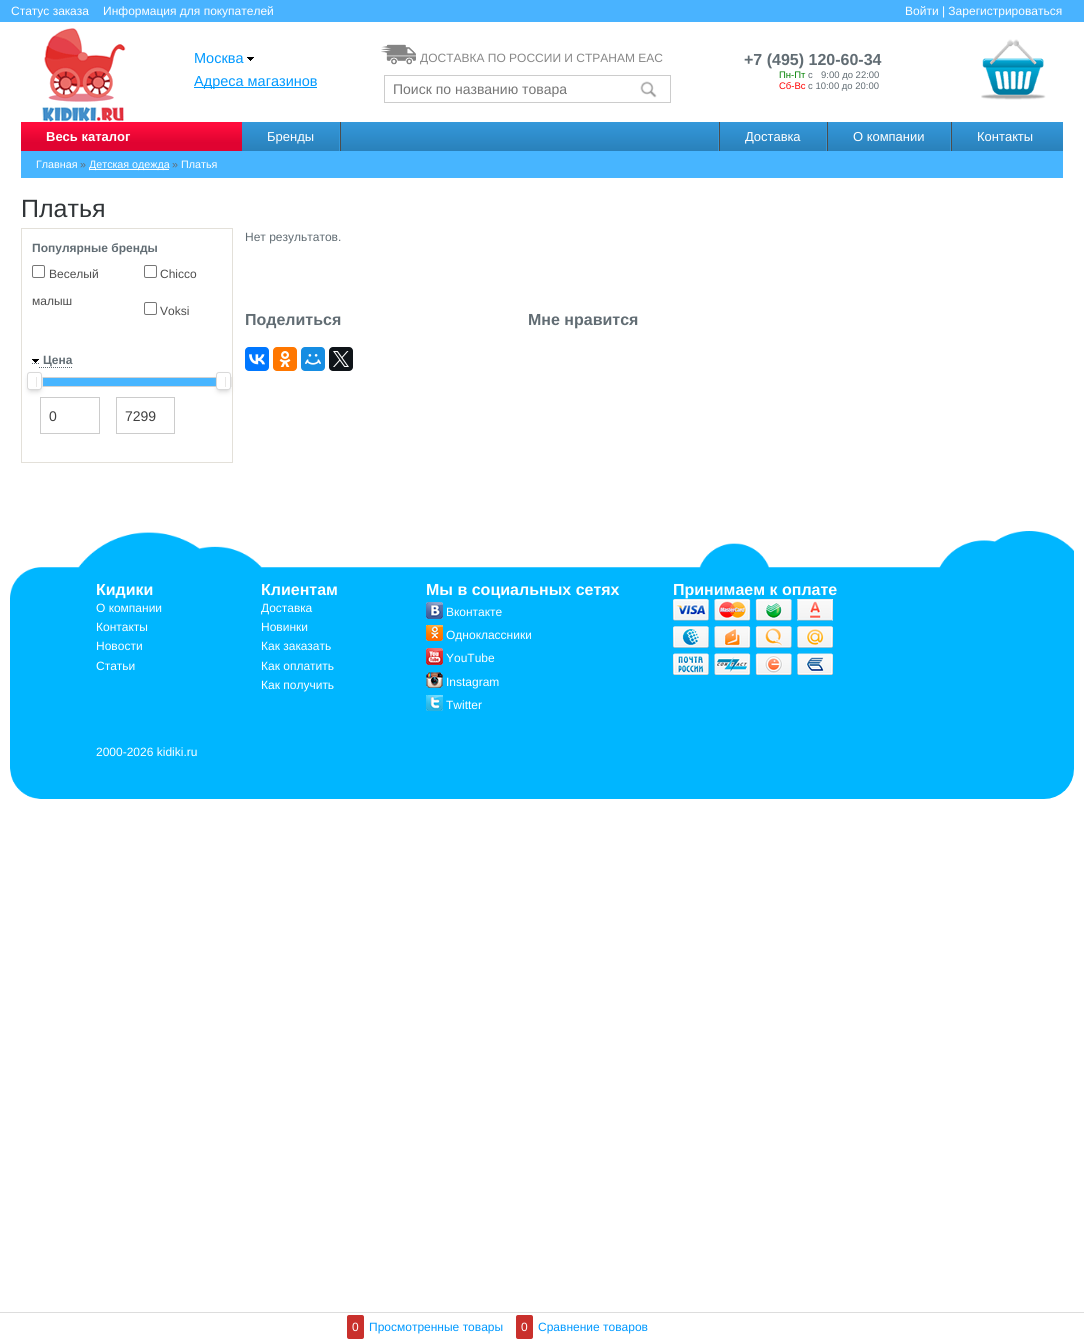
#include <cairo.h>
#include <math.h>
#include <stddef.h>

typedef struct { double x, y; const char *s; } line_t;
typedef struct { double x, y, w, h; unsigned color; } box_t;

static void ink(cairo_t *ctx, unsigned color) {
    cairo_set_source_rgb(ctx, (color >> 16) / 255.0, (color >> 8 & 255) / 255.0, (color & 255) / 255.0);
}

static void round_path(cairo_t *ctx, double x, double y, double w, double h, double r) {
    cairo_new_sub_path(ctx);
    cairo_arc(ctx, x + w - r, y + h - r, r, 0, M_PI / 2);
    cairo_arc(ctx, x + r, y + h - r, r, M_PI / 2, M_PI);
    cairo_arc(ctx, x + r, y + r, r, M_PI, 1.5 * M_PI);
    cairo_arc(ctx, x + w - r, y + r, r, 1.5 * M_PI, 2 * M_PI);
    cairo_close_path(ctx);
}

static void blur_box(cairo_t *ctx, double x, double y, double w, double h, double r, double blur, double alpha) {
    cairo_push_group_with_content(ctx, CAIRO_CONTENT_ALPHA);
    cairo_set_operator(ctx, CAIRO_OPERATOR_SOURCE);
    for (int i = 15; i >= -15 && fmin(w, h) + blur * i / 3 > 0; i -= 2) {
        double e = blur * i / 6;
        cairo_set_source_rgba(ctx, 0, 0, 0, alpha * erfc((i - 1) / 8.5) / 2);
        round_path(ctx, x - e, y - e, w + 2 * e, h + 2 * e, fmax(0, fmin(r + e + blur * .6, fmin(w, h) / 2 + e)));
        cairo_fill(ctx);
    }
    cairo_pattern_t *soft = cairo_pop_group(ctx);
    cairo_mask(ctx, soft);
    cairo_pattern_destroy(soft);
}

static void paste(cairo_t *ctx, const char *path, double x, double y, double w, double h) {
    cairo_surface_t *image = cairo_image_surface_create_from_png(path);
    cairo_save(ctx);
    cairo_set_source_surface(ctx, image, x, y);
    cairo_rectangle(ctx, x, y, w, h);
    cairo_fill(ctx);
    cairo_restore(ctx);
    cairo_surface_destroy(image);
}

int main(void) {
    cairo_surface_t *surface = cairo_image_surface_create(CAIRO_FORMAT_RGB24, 1084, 1342);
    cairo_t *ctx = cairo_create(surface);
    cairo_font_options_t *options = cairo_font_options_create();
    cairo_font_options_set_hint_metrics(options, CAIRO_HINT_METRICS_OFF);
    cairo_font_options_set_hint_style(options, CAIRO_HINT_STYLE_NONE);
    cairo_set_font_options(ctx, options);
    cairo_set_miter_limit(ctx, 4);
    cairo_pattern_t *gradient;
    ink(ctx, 0xFFFFFF);
    cairo_paint(ctx);
    ink(ctx, 0x49B3FF);
    cairo_rectangle(ctx, 0, 0, 1084, 22);
    cairo_fill(ctx);
    cairo_select_font_face(ctx, "Liberation Sans", CAIRO_FONT_SLANT_NORMAL, CAIRO_FONT_WEIGHT_NORMAL);
    cairo_set_font_size(ctx, 12);
    ink(ctx, 0xFFFFFF);
    {
        static const line_t items[] = {
            {11, 15, "Статус заказа"},
            {103, 15, "Информация для покупателей"},
            {905, 15, "Войти | Зарегистрироваться"},
        };
        for (size_t i = 0; i < sizeof items / sizeof *items; i++) {
            cairo_move_to(ctx, items[i].x, items[i].y);
            cairo_show_text(ctx, items[i].s);
        }
    }
    paste(ctx, "media/1.png", 42, 28, 84, 94);
    cairo_set_font_size(ctx, 14.5);
    ink(ctx, 0x0099FF);
    cairo_move_to(ctx, 194, 63);
    cairo_show_text(ctx, "Москва");
    paste(ctx, "media/2.png", 247, 57, 7, 4);
    cairo_rectangle(ctx, 194, 87, 123, 1);
    cairo_fill(ctx);
    cairo_move_to(ctx, 194, 86);
    cairo_show_text(ctx, "Адреса магазинов");
    paste(ctx, "media/3.png", 381, 44, 35, 21);
    cairo_set_font_size(ctx, 12);
    ink(ctx, 0x878787);
    cairo_move_to(ctx, 420, 62);
    cairo_show_text(ctx, "ДОСТАВКА ПО РОССИИ И СТРАНАМ ЕАС");
    {
        static const box_t items[] = {
            {384, 75, 287, 1, 0xCCCCCC},
            {384, 102, 243, 1, 0xCCCCCC},
            {384, 75, 1, 28, 0xCCCCCC},
        };
        for (size_t i = 0; i < sizeof items / sizeof *items; i++) {
            ink(ctx, items[i].color);
            cairo_rectangle(ctx, items[i].x, items[i].y, items[i].w, items[i].h);
            cairo_fill(ctx);
        }
    }
    cairo_set_font_size(ctx, 14);
    ink(ctx, 0x757575);
    cairo_move_to(ctx, 393, 94);
    cairo_show_text(ctx, "Поиск по названию товара");
    ink(ctx, 0xCCCCCC);
    cairo_rectangle(ctx, 670, 75, 1, 28);
    cairo_fill(ctx);
    cairo_rectangle(ctx, 627, 102, 44, 1);
    cairo_fill(ctx);
    paste(ctx, "media/4.png", 640, 81, 17, 17);
    cairo_select_font_face(ctx, "Liberation Sans", CAIRO_FONT_SLANT_NORMAL, CAIRO_FONT_WEIGHT_BOLD);
    cairo_set_font_size(ctx, 16);
    ink(ctx, 0x616C73);
    cairo_move_to(ctx, 744, 65);
    cairo_show_text(ctx, "+7 (495) 120-60-34");
    cairo_select_font_face(ctx, "Liberation Sans", CAIRO_FONT_SLANT_NORMAL, CAIRO_FONT_WEIGHT_NORMAL);
    cairo_set_font_size(ctx, 9.5);
    ink(ctx, 0x008000);
    cairo_move_to(ctx, 779, 78);
    cairo_show_text(ctx, "Пн-Пт");
    ink(ctx, 0x616C73);
    cairo_move_to(ctx, 808, 78);
    cairo_show_text(ctx, "с");
    cairo_move_to(ctx, 821, 78);
    cairo_show_text(ctx, "9:00 до 22:00");
    ink(ctx, 0xFF0000);
    cairo_move_to(ctx, 779, 89);
    cairo_show_text(ctx, "Сб-Вс");
    ink(ctx, 0x616C73);
    cairo_move_to(ctx, 808, 89);
    cairo_show_text(ctx, "с 10:00 до 20:00");
    paste(ctx, "media/5.png", 981, 39, 65, 61);
    gradient = cairo_pattern_create_linear(542, 122, 542, 152);
    cairo_pattern_add_color_stop_rgba(gradient, 0, 0.204, 0.596, 0.859, 1);
    cairo_pattern_add_color_stop_rgba(gradient, 1, 0.161, 0.502, 0.725, 1);
    cairo_set_source(ctx, gradient);
    cairo_pattern_destroy(gradient);
    cairo_rectangle(ctx, 242, 122, 821, 29);
    cairo_fill(ctx);
    gradient = cairo_pattern_create_linear(132, 122, 132, 152);
    cairo_pattern_add_color_stop_rgba(gradient, 0.11, 1, 0.047, 0.235, 1);
    cairo_pattern_add_color_stop_rgba(gradient, 0.68, 0.878, 0.012, 0.192, 1);
    cairo_set_source(ctx, gradient);
    cairo_pattern_destroy(gradient);
    cairo_rectangle(ctx, 21, 122, 221, 29);
    cairo_fill(ctx);
    cairo_select_font_face(ctx, "Liberation Sans", CAIRO_FONT_SLANT_NORMAL, CAIRO_FONT_WEIGHT_BOLD);
    cairo_set_font_size(ctx, 13);
    ink(ctx, 0xFFFFFF);
    cairo_move_to(ctx, 46, 141);
    cairo_show_text(ctx, "Весь каталог");
    cairo_select_font_face(ctx, "Liberation Sans", CAIRO_FONT_SLANT_NORMAL, CAIRO_FONT_WEIGHT_NORMAL);
    cairo_move_to(ctx, 267, 141);
    cairo_show_text(ctx, "Бренды");
    {
        static const box_t items[] = {
            {340, 122, 1, 30, 0x4D4D4D},
            {339, 122, 1, 30, 0x3498DB},
            {719, 122, 1, 30, 0x4D4D4D},
            {718, 122, 1, 30, 0x3498DB},
        };
        for (size_t i = 0; i < sizeof items / sizeof *items; i++) {
            ink(ctx, items[i].color);
            cairo_rectangle(ctx, items[i].x, items[i].y, items[i].w, items[i].h);
            cairo_fill(ctx);
        }
    }
    ink(ctx, 0xFFFFFF);
    cairo_move_to(ctx, 745, 141);
    cairo_show_text(ctx, "Доставка");
    ink(ctx, 0x4D4D4D);
    cairo_rectangle(ctx, 827, 122, 1, 30);
    cairo_fill(ctx);
    ink(ctx, 0x3498DB);
    cairo_rectangle(ctx, 826, 122, 1, 30);
    cairo_fill(ctx);
    ink(ctx, 0xFFFFFF);
    cairo_move_to(ctx, 853, 141);
    cairo_show_text(ctx, "О компании");
    ink(ctx, 0x4D4D4D);
    cairo_rectangle(ctx, 951, 122, 1, 30);
    cairo_fill(ctx);
    ink(ctx, 0x3498DB);
    cairo_rectangle(ctx, 950, 122, 1, 30);
    cairo_fill(ctx);
    ink(ctx, 0xFFFFFF);
    cairo_move_to(ctx, 977, 141);
    cairo_show_text(ctx, "Контакты");
    ink(ctx, 0x47B5FF);
    cairo_rectangle(ctx, 21, 151, 1042, 27);
    cairo_fill(ctx);
    cairo_set_font_size(ctx, 10.75);
    ink(ctx, 0xFFFFFF);
    cairo_move_to(ctx, 36, 168);
    cairo_show_text(ctx, "Главная");
    ink(ctx, 0x616C73);
    cairo_move_to(ctx, 80, 168);
    cairo_show_text(ctx, "»");
    ink(ctx, 0xFFFFFF);
    cairo_rectangle(ctx, 89, 169, 80, 1);
    cairo_fill(ctx);
    cairo_move_to(ctx, 89, 168);
    cairo_show_text(ctx, "Детская одежда");
    ink(ctx, 0x616C73);
    cairo_move_to(ctx, 172, 168);
    cairo_show_text(ctx, "»");
    ink(ctx, 0xFFFFFF);
    cairo_move_to(ctx, 181, 168);
    cairo_show_text(ctx, "Платья");
    cairo_set_font_size(ctx, 25);
    ink(ctx, 0x303437);
    cairo_move_to(ctx, 21, 217);
    cairo_show_text(ctx, "Платья");
    cairo_rectangle(ctx, 21.5, 228.5, 211, 234);
    ink(ctx, 0xE3E0D9);
    cairo_set_line_width(ctx, 1);
    cairo_stroke(ctx);
    cairo_select_font_face(ctx, "Liberation Sans", CAIRO_FONT_SLANT_NORMAL, CAIRO_FONT_WEIGHT_BOLD);
    cairo_set_font_size(ctx, 12);
    ink(ctx, 0x616C73);
    cairo_move_to(ctx, 32, 252);
    cairo_show_text(ctx, "Популярные бренды");
    round_path(ctx, 32.5, 265.5, 12, 12, 1.5);
    ink(ctx, 0x767676);
    cairo_stroke(ctx);
    cairo_select_font_face(ctx, "Liberation Sans", CAIRO_FONT_SLANT_NORMAL, CAIRO_FONT_WEIGHT_NORMAL);
    ink(ctx, 0x4D4D4D);
    cairo_move_to(ctx, 49, 278);
    cairo_show_text(ctx, "Веселый");
    cairo_move_to(ctx, 32, 305);
    cairo_show_text(ctx, "малыш");
    round_path(ctx, 144.5, 265.5, 12, 12, 1.5);
    ink(ctx, 0x767676);
    cairo_stroke(ctx);
    ink(ctx, 0x4D4D4D);
    cairo_move_to(ctx, 160, 278);
    cairo_show_text(ctx, "Chicco");
    round_path(ctx, 144.5, 302.5, 12, 12, 1.5);
    ink(ctx, 0x767676);
    cairo_stroke(ctx);
    ink(ctx, 0x4D4D4D);
    cairo_move_to(ctx, 160, 315);
    cairo_show_text(ctx, "Voksi");
    cairo_new_path(ctx);
    cairo_move_to(ctx, 32, 363.5);
    cairo_line_to(ctx, 33, 363.5);
    cairo_move_to(ctx, 34, 363.5);
    cairo_line_to(ctx, 35, 363.5);
    cairo_move_to(ctx, 36, 363.5);
    cairo_line_to(ctx, 37, 363.5);
    cairo_move_to(ctx, 38, 363.5);
    cairo_line_to(ctx, 39, 363.5);
    ink(ctx, 0x616C73);
    cairo_stroke(ctx);
    cairo_new_path(ctx);
    cairo_move_to(ctx, 39, 367.5);
    cairo_line_to(ctx, 72, 367.5);
    cairo_set_dash(ctx, (double[]){1, 1}, 2, 0);
    cairo_stroke(ctx);
    paste(ctx, "media/2.png", 32, 359, 7, 4);
    cairo_select_font_face(ctx, "Liberation Sans", CAIRO_FONT_SLANT_NORMAL, CAIRO_FONT_WEIGHT_BOLD);
    cairo_move_to(ctx, 43, 364);
    cairo_show_text(ctx, "Цена");
    cairo_rectangle(ctx, 37.5, 377.5, 190, 9);
    ink(ctx, 0xD3D3D3);
    cairo_set_dash(ctx, NULL, 0, 0);
    cairo_stroke(ctx);
    ink(ctx, 0x47B5FF);
    cairo_rectangle(ctx, 38, 378, 178, 8);
    cairo_fill(ctx);
    cairo_rectangle(ctx, 40.5, 397.5, 59, 36);
    ink(ctx, 0xCCCCCC);
    cairo_stroke(ctx);
    ink(ctx, 0xBBBBBB);
    blur_box(ctx, 30, 378, 9, 12, 0, 3, 1);
    ink(ctx, 0xFFFFFF);
    round_path(ctx, 27.5, 372.5, 14, 17, 2.5);
    cairo_fill_preserve(ctx);
    ink(ctx, 0xD9D9D9);
    cairo_stroke(ctx);
    ink(ctx, 0xE8E7E6);
    cairo_rectangle(ctx, 36, 377, 1, 10);
    cairo_fill(ctx);
    cairo_rectangle(ctx, 42, 377, 1, 10);
    cairo_fill(ctx);
    ink(ctx, 0xBBBBBB);
    blur_box(ctx, 219, 378, 9, 12, 0, 3, 1);
    ink(ctx, 0xFFFFFF);
    round_path(ctx, 216.5, 372.5, 14, 17, 2.5);
    cairo_fill_preserve(ctx);
    ink(ctx, 0xD9D9D9);
    cairo_stroke(ctx);
    ink(ctx, 0xE8E7E6);
    cairo_rectangle(ctx, 225, 377, 1, 10);
    cairo_fill(ctx);
    cairo_rectangle(ctx, 231, 377, 1, 10);
    cairo_fill(ctx);
    cairo_select_font_face(ctx, "Liberation Sans", CAIRO_FONT_SLANT_NORMAL, CAIRO_FONT_WEIGHT_NORMAL);
    cairo_set_font_size(ctx, 14);
    ink(ctx, 0x404040);
    cairo_move_to(ctx, 49, 421);
    cairo_show_text(ctx, "0");
    cairo_rectangle(ctx, 116.5, 397.5, 58, 36);
    ink(ctx, 0xCCCCCC);
    cairo_stroke(ctx);
    ink(ctx, 0x404040);
    cairo_move_to(ctx, 125, 421);
    cairo_show_text(ctx, "7299");
    cairo_set_font_size(ctx, 12);
    ink(ctx, 0x616C73);
    cairo_move_to(ctx, 245, 241);
    cairo_show_text(ctx, "Нет результатов.");
    cairo_select_font_face(ctx, "Liberation Sans", CAIRO_FONT_SLANT_NORMAL, CAIRO_FONT_WEIGHT_BOLD);
    cairo_set_font_size(ctx, 16);
    cairo_move_to(ctx, 245, 325);
    cairo_show_text(ctx, "Поделиться");
    ink(ctx, 0x0077FF);
    round_path(ctx, 245, 347, 24, 24, 4);
    cairo_fill(ctx);
    paste(ctx, "media/6.png", 249, 354, 16, 11);
    ink(ctx, 0xFF7700);
    round_path(ctx, 273, 347, 24, 24, 4);
    cairo_fill(ctx);
    paste(ctx, "media/7.png", 279, 351, 12, 16);
    ink(ctx, 0x168DE2);
    round_path(ctx, 301, 347, 24, 24, 4);
    cairo_fill(ctx);
    paste(ctx, "media/8.png", 305, 354, 16, 11);
    ink(ctx, 0x0F1419);
    round_path(ctx, 329, 347, 24, 24, 4);
    cairo_fill(ctx);
    paste(ctx, "media/9.png", 333, 351, 16, 16);
    ink(ctx, 0x616C73);
    cairo_move_to(ctx, 528, 325);
    cairo_show_text(ctx, "Мне нравится");
    paste(ctx, "media/10.png", 10, 531, 1064, 268);
    ink(ctx, 0xFFFFFF);
    cairo_move_to(ctx, 96, 595);
    cairo_show_text(ctx, "Кидики");
    cairo_select_font_face(ctx, "Liberation Sans", CAIRO_FONT_SLANT_NORMAL, CAIRO_FONT_WEIGHT_NORMAL);
    cairo_set_font_size(ctx, 12);
    {
        static const line_t items[] = {
            {96, 612, "О компании"},
            {96, 631, "Контакты"},
            {96, 650, "Новости"},
            {96, 670, "Статьи"},
        };
        for (size_t i = 0; i < sizeof items / sizeof *items; i++) {
            cairo_move_to(ctx, items[i].x, items[i].y);
            cairo_show_text(ctx, items[i].s);
        }
    }
    cairo_select_font_face(ctx, "Liberation Sans", CAIRO_FONT_SLANT_NORMAL, CAIRO_FONT_WEIGHT_BOLD);
    cairo_set_font_size(ctx, 16);
    cairo_move_to(ctx, 261, 595);
    cairo_show_text(ctx, "Клиентам");
    cairo_select_font_face(ctx, "Liberation Sans", CAIRO_FONT_SLANT_NORMAL, CAIRO_FONT_WEIGHT_NORMAL);
    cairo_set_font_size(ctx, 12);
    {
        static const line_t items[] = {
            {261, 612, "Доставка"},
            {261, 631, "Новинки"},
            {261, 650, "Как заказать"},
            {261, 670, "Как оплатить"},
            {261, 689, "Как получить"},
        };
        for (size_t i = 0; i < sizeof items / sizeof *items; i++) {
            cairo_move_to(ctx, items[i].x, items[i].y);
            cairo_show_text(ctx, items[i].s);
        }
    }
    cairo_select_font_face(ctx, "Liberation Sans", CAIRO_FONT_SLANT_NORMAL, CAIRO_FONT_WEIGHT_BOLD);
    cairo_set_font_size(ctx, 16);
    cairo_move_to(ctx, 426, 595);
    cairo_show_text(ctx, "Мы в социальных сетях");
    paste(ctx, "media/11.png", 426, 602, 17, 17);
    cairo_select_font_face(ctx, "Liberation Sans", CAIRO_FONT_SLANT_NORMAL, CAIRO_FONT_WEIGHT_NORMAL);
    cairo_set_font_size(ctx, 12);
    cairo_move_to(ctx, 446, 616);
    cairo_show_text(ctx, "Вконтакте");
    paste(ctx, "media/12.png", 426, 625, 17, 16);
    cairo_move_to(ctx, 446, 639);
    cairo_show_text(ctx, "Одноклассники");
    paste(ctx, "media/13.png", 426, 648, 17, 17);
    cairo_move_to(ctx, 446, 662);
    cairo_show_text(ctx, "YouTube");
    paste(ctx, "media/14.png", 426, 672, 17, 16);
    cairo_move_to(ctx, 446, 686);
    cairo_show_text(ctx, "Instagram");
    paste(ctx, "media/15.png", 426, 695, 17, 16);
    cairo_move_to(ctx, 446, 709);
    cairo_show_text(ctx, "Twitter");
    cairo_select_font_face(ctx, "Liberation Sans", CAIRO_FONT_SLANT_NORMAL, CAIRO_FONT_WEIGHT_BOLD);
    cairo_set_font_size(ctx, 16);
    cairo_move_to(ctx, 673, 595);
    cairo_show_text(ctx, "Принимаем к оплате");
    paste(ctx, "media/16.png", 673, 599, 160, 76);
    cairo_select_font_face(ctx, "Liberation Sans", CAIRO_FONT_SLANT_NORMAL, CAIRO_FONT_WEIGHT_NORMAL);
    cairo_set_font_size(ctx, 12);
    cairo_move_to(ctx, 96, 756);
    cairo_show_text(ctx, "2000-2026 kidiki.ru");
    ink(ctx, 0xDDDDDD);
    cairo_rectangle(ctx, 0, 1312, 1084, 1);
    cairo_fill(ctx);
    ink(ctx, 0xC9302C);
    round_path(ctx, 347, 1315, 17, 24, 2);
    cairo_fill(ctx);
    ink(ctx, 0xFFFFFF);
    cairo_move_to(ctx, 352, 1331);
    cairo_show_text(ctx, "0");
    ink(ctx, 0x0099FF);
    cairo_move_to(ctx, 369, 1331);
    cairo_show_text(ctx, "Просмотренные товары");
    ink(ctx, 0xC9302C);
    round_path(ctx, 516, 1315, 17, 24, 2);
    cairo_fill(ctx);
    ink(ctx, 0xFFFFFF);
    cairo_move_to(ctx, 521, 1331);
    cairo_show_text(ctx, "0");
    ink(ctx, 0x0099FF);
    cairo_move_to(ctx, 538, 1331);
    cairo_show_text(ctx, "Сравнение товаров");
    cairo_surface_write_to_png(surface, "image.png");
    cairo_font_options_destroy(options);
    cairo_destroy(ctx);
    cairo_surface_destroy(surface);
    return 0;
}
